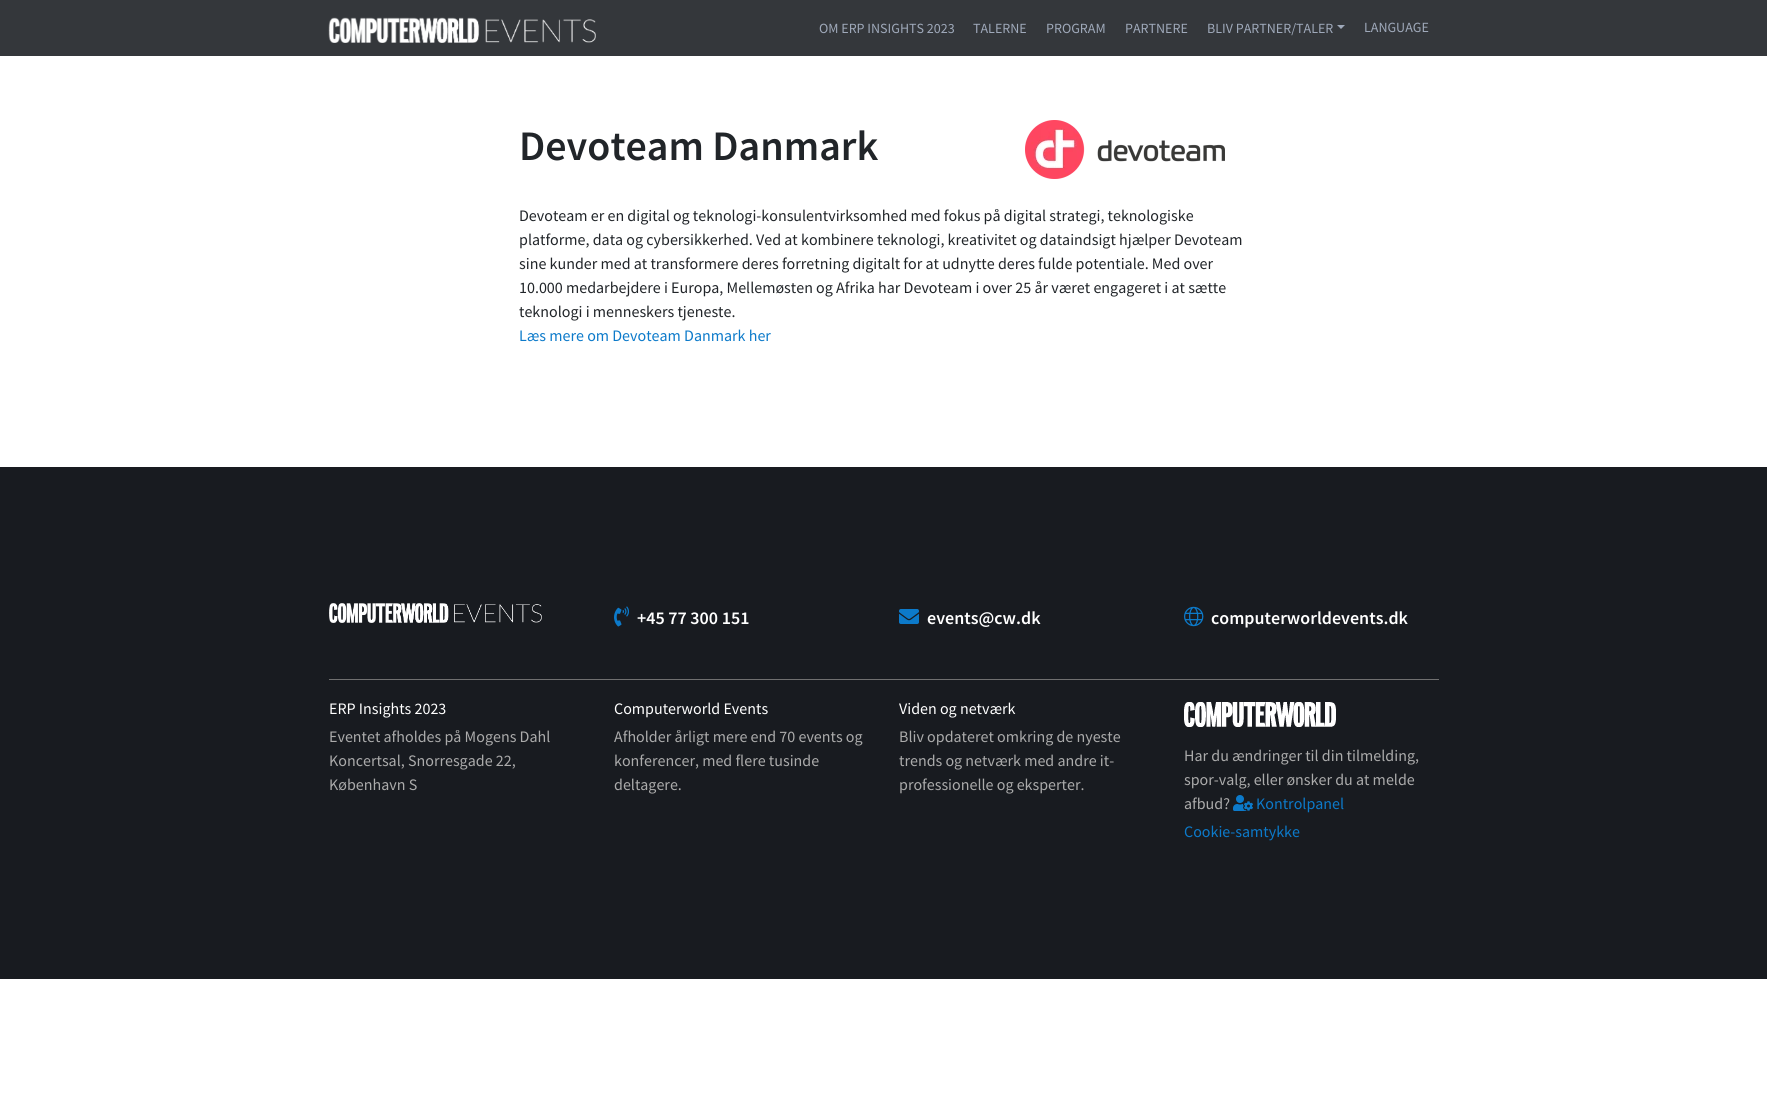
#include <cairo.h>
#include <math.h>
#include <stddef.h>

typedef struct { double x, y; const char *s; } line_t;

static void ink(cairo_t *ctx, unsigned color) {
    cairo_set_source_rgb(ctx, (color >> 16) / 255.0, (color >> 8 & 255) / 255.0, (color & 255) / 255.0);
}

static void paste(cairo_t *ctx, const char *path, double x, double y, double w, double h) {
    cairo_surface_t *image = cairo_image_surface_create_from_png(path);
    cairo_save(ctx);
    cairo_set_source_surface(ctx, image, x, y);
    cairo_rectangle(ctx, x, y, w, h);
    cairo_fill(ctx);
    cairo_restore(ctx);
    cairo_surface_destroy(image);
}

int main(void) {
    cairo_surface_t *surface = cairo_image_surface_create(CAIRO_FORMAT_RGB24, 1767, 1118);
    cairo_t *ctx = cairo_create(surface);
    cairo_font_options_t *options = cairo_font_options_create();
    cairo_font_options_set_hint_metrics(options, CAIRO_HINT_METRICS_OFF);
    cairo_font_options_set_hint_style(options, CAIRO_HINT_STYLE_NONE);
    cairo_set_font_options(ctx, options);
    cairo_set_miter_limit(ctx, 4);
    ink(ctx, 0xFFFFFF);
    cairo_paint(ctx);
    ink(ctx, 0x34373B);
    cairo_rectangle(ctx, 0, 0, 1767, 56);
    cairo_fill(ctx);
    paste(ctx, "media/1.png", 328, 17, 268, 26);
    cairo_select_font_face(ctx, "Source Sans Pro", CAIRO_FONT_SLANT_NORMAL, CAIRO_FONT_WEIGHT_NORMAL);
    cairo_set_font_size(ctx, 14);
    ink(ctx, 0x9FA9BA);
    {
        static const line_t items[] = {
            {819, 33, "OM ERP INSIGHTS 2023"},
            {973, 33, "TALERNE"},
            {1046, 33, "PROGRAM"},
            {1125, 33, "PARTNERE"},
            {1207, 33, "BLIV PARTNER/TALER"},
        };
        for (size_t i = 0; i < sizeof items / sizeof *items; i++) {
            cairo_move_to(ctx, items[i].x, items[i].y);
            cairo_show_text(ctx, items[i].s);
        }
    }
    cairo_new_path(ctx);
    cairo_move_to(ctx, 1337, 25);
    cairo_line_to(ctx, 1345, 25);
    cairo_line_to(ctx, 1341, 29);
    cairo_close_path(ctx);
    cairo_fill(ctx);
    cairo_move_to(ctx, 1364, 32);
    cairo_show_text(ctx, "LANGUAGE");
    cairo_select_font_face(ctx, "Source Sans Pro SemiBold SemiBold", CAIRO_FONT_SLANT_NORMAL, CAIRO_FONT_WEIGHT_NORMAL);
    cairo_set_font_size(ctx, 42);
    ink(ctx, 0x212529);
    cairo_move_to(ctx, 519, 160);
    cairo_show_text(ctx, "Devoteam Danmark");
    paste(ctx, "media/2.png", 1025, 120, 200, 59);
    cairo_select_font_face(ctx, "Source Sans Pro", CAIRO_FONT_SLANT_NORMAL, CAIRO_FONT_WEIGHT_NORMAL);
    cairo_set_font_size(ctx, 16);
    {
        static const line_t items[] = {
            {519, 221, "Devoteam er en digital og teknologi-konsulentvirksomhed med fokus på digital strategi, teknologiske"},
            {519, 245, "platforme, data og cybersikkerhed. Ved at kombinere teknologi, kreativitet og dataindsigt hjælper Devoteam"},
            {519, 269, "sine kunder med at transformere deres forretning digitalt for at udnytte deres fulde potentiale. Med over"},
            {519, 293, "10.000 medarbejdere i Europa, Mellemøsten og Afrika har Devoteam i over 25 år været engageret i at sætte"},
            {519, 317, "teknologi i menneskers tjeneste."},
        };
        for (size_t i = 0; i < sizeof items / sizeof *items; i++) {
            cairo_move_to(ctx, items[i].x, items[i].y);
            cairo_show_text(ctx, items[i].s);
        }
    }
    ink(ctx, 0x0C7ACA);
    cairo_move_to(ctx, 519, 341);
    cairo_show_text(ctx, "Læs mere om Devoteam Danmark her");
    ink(ctx, 0x181B20);
    cairo_rectangle(ctx, 0, 467, 1767, 512);
    cairo_fill(ctx);
    paste(ctx, "media/3.png", 329, 603, 213, 20);
    paste(ctx, "media/4.png", 614, 606, 15, 21);
    cairo_select_font_face(ctx, "Source Sans Pro SemiBold SemiBold", CAIRO_FONT_SLANT_NORMAL, CAIRO_FONT_WEIGHT_NORMAL);
    cairo_set_font_size(ctx, 18);
    ink(ctx, 0xFFFFFF);
    cairo_move_to(ctx, 637, 624);
    cairo_show_text(ctx, "+45 77 300 151");
    paste(ctx, "media/5.png", 899, 609, 20, 15);
    cairo_move_to(ctx, 927, 624);
    cairo_show_text(ctx, "events@cw.dk");
    paste(ctx, "media/6.png", 1184, 606, 20, 21);
    cairo_move_to(ctx, 1211, 624);
    cairo_show_text(ctx, "computerworldevents.dk");
    ink(ctx, 0x707070);
    cairo_rectangle(ctx, 329, 679, 1110, 1);
    cairo_fill(ctx);
    cairo_select_font_face(ctx, "Source Sans Pro", CAIRO_FONT_SLANT_NORMAL, CAIRO_FONT_WEIGHT_NORMAL);
    cairo_set_font_size(ctx, 16);
    ink(ctx, 0xFFFFFF);
    cairo_move_to(ctx, 329, 714);
    cairo_show_text(ctx, "ERP Insights 2023");
    ink(ctx, 0xABABAB);
    {
        static const line_t items[] = {
            {329, 742, "Eventet afholdes på Mogens Dahl"},
            {329, 766, "Koncertsal, Snorresgade 22,"},
            {329, 790, "København S"},
        };
        for (size_t i = 0; i < sizeof items / sizeof *items; i++) {
            cairo_move_to(ctx, items[i].x, items[i].y);
            cairo_show_text(ctx, items[i].s);
        }
    }
    ink(ctx, 0xFFFFFF);
    cairo_move_to(ctx, 614, 714);
    cairo_show_text(ctx, "Computerworld Events");
    ink(ctx, 0xABABAB);
    {
        static const line_t items[] = {
            {614, 742, "Afholder årligt mere end 70 events og"},
            {614, 766, "konferencer, med flere tusinde"},
            {614, 790, "deltagere."},
        };
        for (size_t i = 0; i < sizeof items / sizeof *items; i++) {
            cairo_move_to(ctx, items[i].x, items[i].y);
            cairo_show_text(ctx, items[i].s);
        }
    }
    ink(ctx, 0xFFFFFF);
    cairo_move_to(ctx, 899, 714);
    cairo_show_text(ctx, "Viden og netværk");
    ink(ctx, 0xABABAB);
    {
        static const line_t items[] = {
            {899, 742, "Bliv opdateret omkring de nyeste"},
            {899, 766, "trends og netværk med andre it-"},
            {899, 790, "professionelle og eksperter."},
        };
        for (size_t i = 0; i < sizeof items / sizeof *items; i++) {
            cairo_move_to(ctx, items[i].x, items[i].y);
            cairo_show_text(ctx, items[i].s);
        }
    }
    paste(ctx, "media/7.png", 1184, 702, 152, 25);
    {
        static const line_t items[] = {
            {1184, 761, "Har du ændringer til din tilmelding,"},
            {1184, 785, "spor-valg, eller ønsker du at melde"},
            {1184, 809, "afbud?"},
        };
        for (size_t i = 0; i < sizeof items / sizeof *items; i++) {
            cairo_move_to(ctx, items[i].x, items[i].y);
            cairo_show_text(ctx, items[i].s);
        }
    }
    paste(ctx, "media/8.png", 1233, 795, 20, 16);
    ink(ctx, 0x0C7ACA);
    cairo_move_to(ctx, 1256, 809);
    cairo_show_text(ctx, "Kontrolpanel");
    cairo_move_to(ctx, 1184, 837);
    cairo_show_text(ctx, "Cookie-samtykke");
    cairo_surface_write_to_png(surface, "image.png");
    cairo_font_options_destroy(options);
    cairo_destroy(ctx);
    cairo_surface_destroy(surface);
    return 0;
}
